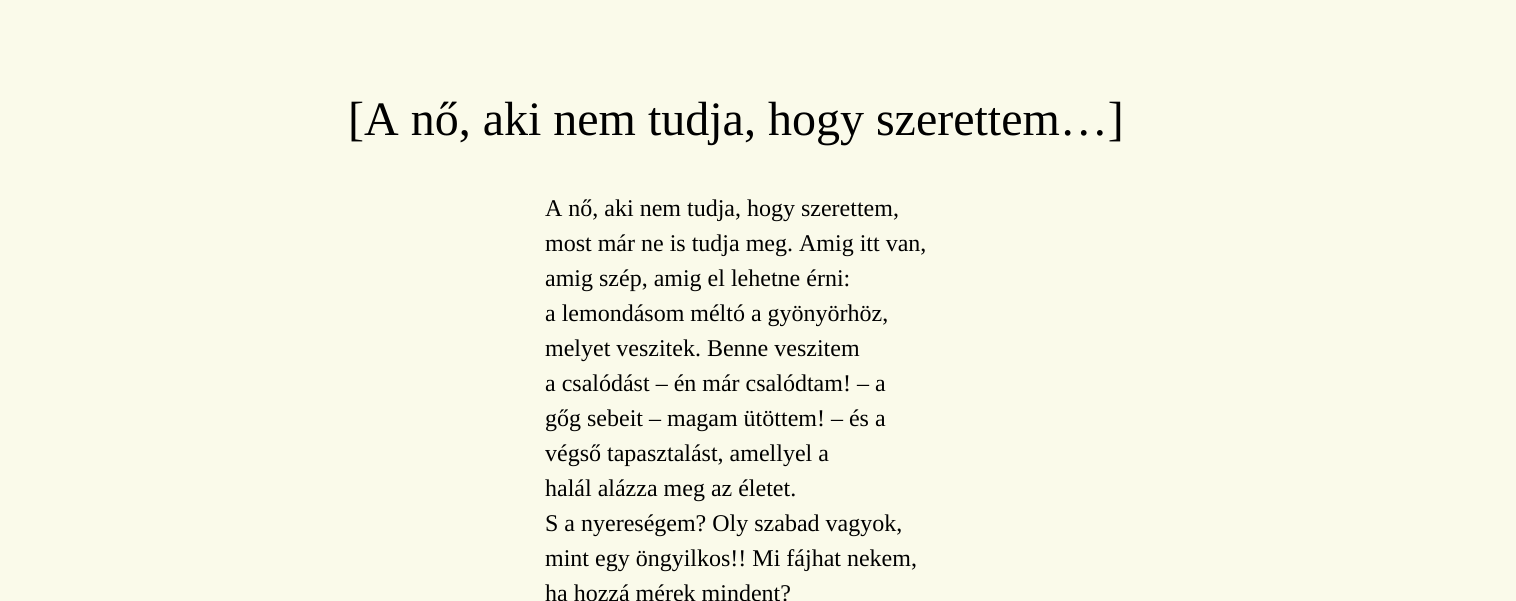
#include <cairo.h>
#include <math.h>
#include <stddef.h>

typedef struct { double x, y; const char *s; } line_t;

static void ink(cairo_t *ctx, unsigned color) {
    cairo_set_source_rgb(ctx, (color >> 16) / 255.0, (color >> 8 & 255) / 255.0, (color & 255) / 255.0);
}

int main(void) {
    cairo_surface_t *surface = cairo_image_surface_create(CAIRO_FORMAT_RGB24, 1516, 601);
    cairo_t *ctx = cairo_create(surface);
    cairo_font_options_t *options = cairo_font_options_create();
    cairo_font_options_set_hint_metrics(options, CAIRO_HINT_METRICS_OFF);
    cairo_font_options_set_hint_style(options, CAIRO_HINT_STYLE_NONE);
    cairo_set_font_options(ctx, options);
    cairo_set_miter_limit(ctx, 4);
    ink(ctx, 0xFAFAEA);
    cairo_paint(ctx);
    cairo_select_font_face(ctx, "Liberation Serif", CAIRO_FONT_SLANT_NORMAL, CAIRO_FONT_WEIGHT_NORMAL);
    cairo_set_font_size(ctx, 48);
    ink(ctx, 0x000000);
    cairo_move_to(ctx, 348, 135);
    cairo_show_text(ctx, "[A nő, aki nem tudja, hogy szerettem…]");
    cairo_set_font_size(ctx, 24);
    {
        static const line_t items[] = {
            {545, 216, "A nő, aki nem tudja, hogy szerettem,"},
            {545, 251, "most már ne is tudja meg. Amig itt van,"},
            {545, 286, "amig szép, amig el lehetne érni:"},
            {545, 321, "a lemondásom méltó a gyönyörhöz,"},
            {545, 356, "melyet veszitek. Benne veszitem"},
            {545, 391, "a csalódást – én már csalódtam! – a"},
            {545, 426, "gőg sebeit – magam ütöttem! – és a"},
            {545, 461, "végső tapasztalást, amellyel a"},
            {545, 496, "halál alázza meg az életet."},
            {545, 531, "S a nyereségem? Oly szabad vagyok,"},
            {545, 566, "mint egy öngyilkos!! Mi fájhat nekem,"},
            {545, 601, "ha hozzá mérek mindent?"},
        };
        for (size_t i = 0; i < sizeof items / sizeof *items; i++) {
            cairo_move_to(ctx, items[i].x, items[i].y);
            cairo_show_text(ctx, items[i].s);
        }
    }
    cairo_surface_write_to_png(surface, "image.png");
    cairo_font_options_destroy(options);
    cairo_destroy(ctx);
    cairo_surface_destroy(surface);
    return 0;
}
